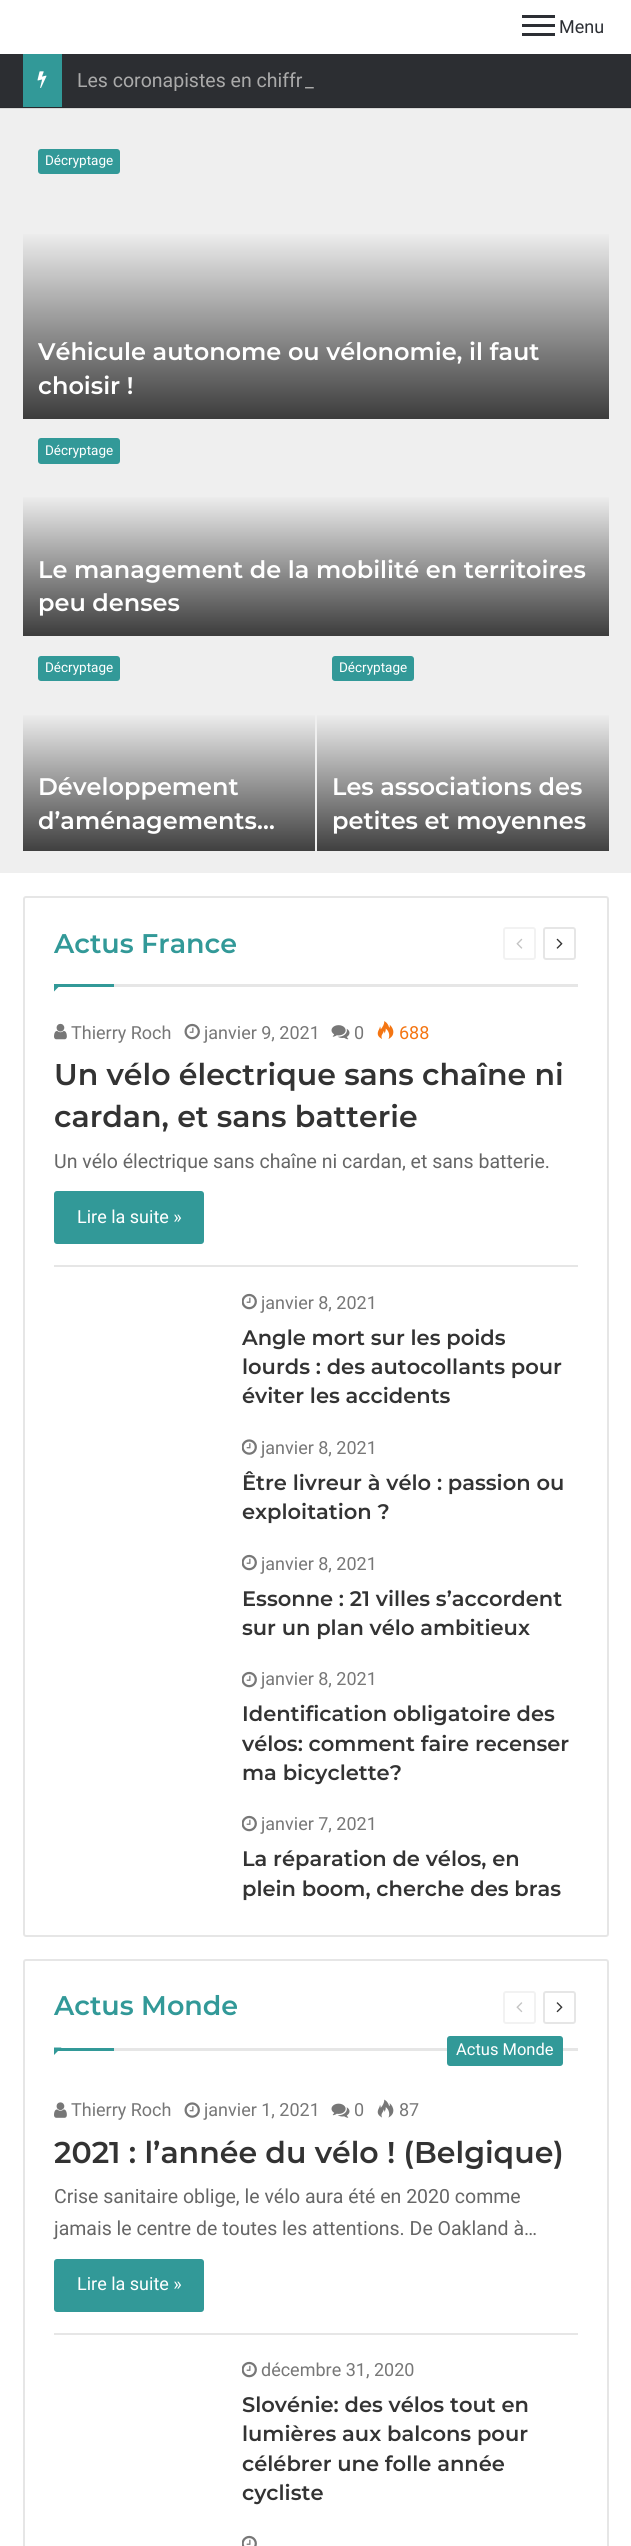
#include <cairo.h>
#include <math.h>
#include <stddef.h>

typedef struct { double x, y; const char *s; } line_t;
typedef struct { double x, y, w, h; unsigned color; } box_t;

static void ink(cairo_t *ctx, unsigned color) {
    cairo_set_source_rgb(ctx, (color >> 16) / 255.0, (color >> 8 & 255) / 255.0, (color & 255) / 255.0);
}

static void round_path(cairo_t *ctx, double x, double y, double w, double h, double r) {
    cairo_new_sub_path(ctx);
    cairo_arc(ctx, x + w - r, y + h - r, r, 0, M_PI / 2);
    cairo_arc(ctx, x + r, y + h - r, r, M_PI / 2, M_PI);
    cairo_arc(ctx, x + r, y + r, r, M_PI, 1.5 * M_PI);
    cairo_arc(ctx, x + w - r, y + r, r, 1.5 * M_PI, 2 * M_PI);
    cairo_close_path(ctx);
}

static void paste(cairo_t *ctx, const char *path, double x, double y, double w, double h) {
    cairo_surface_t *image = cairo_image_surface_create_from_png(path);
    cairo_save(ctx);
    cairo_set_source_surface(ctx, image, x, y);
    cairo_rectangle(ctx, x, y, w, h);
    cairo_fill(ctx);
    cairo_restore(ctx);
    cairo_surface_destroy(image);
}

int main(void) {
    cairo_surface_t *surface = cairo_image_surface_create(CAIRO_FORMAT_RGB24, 631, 2546);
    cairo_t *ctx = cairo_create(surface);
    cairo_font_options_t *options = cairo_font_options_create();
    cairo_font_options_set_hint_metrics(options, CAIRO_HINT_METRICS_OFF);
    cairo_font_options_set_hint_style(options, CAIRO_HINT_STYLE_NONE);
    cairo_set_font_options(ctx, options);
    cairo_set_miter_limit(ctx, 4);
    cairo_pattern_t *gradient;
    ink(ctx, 0xFFFFFF);
    cairo_paint(ctx);
    {
        static const box_t items[] = {
            {522, 24, 33, 3, 0x2C2F34},
            {522, 15, 33, 3, 0x2C2F34},
            {522, 33, 33, 3, 0x2C2F34},
        };
        for (size_t i = 0; i < sizeof items / sizeof *items; i++) {
            ink(ctx, items[i].color);
            cairo_rectangle(ctx, items[i].x, items[i].y, items[i].w, items[i].h);
            cairo_fill(ctx);
        }
    }
    cairo_select_font_face(ctx, "Roboto", CAIRO_FONT_SLANT_NORMAL, CAIRO_FONT_WEIGHT_NORMAL);
    cairo_set_font_size(ctx, 18);
    cairo_move_to(ctx, 559, 33);
    cairo_show_text(ctx, "Menu");
    {
        static const box_t items[] = {
            {0, 54, 631, 53, 0x2C2E32},
            {0, 107, 631, 1, 0x28292D},
            {23, 54, 39, 53, 0x329998},
        };
        for (size_t i = 0; i < sizeof items / sizeof *items; i++) {
            ink(ctx, items[i].color);
            cairo_rectangle(ctx, items[i].x, items[i].y, items[i].w, items[i].h);
            cairo_fill(ctx);
        }
    }
    paste(ctx, "media/1.png", 37, 71, 10, 17);
    cairo_set_font_size(ctx, 19.5);
    ink(ctx, 0xAAAAAA);
    cairo_move_to(ctx, 77, 87);
    cairo_show_text(ctx, "Les coronapistes en chiffr");
    cairo_move_to(ctx, 305, 87);
    cairo_show_text(ctx, "_");
    ink(ctx, 0xEFEFEF);
    cairo_rectangle(ctx, 0, 109, 631, 764);
    cairo_fill(ctx);
    ink(ctx, 0xD7D7D7);
    cairo_rectangle(ctx, 0, 108, 631, 1);
    cairo_fill(ctx);
    ink(ctx, 0x329998);
    round_path(ctx, 38, 149, 82, 25, 3);
    cairo_fill(ctx);
    cairo_set_font_size(ctx, 13.5);
    ink(ctx, 0xFFFFFF);
    cairo_move_to(ctx, 45, 165);
    cairo_show_text(ctx, "Décryptage");
    gradient = cairo_pattern_create_linear(317, 231, 317, 419);
    cairo_pattern_add_color_stop_rgba(gradient, 0, 0.937, 0.937, 0.937, 1);
    cairo_pattern_add_color_stop_rgba(gradient, 1, 0.235, 0.235, 0.235, 1);
    cairo_set_source(ctx, gradient);
    cairo_pattern_destroy(gradient);
    cairo_rectangle(ctx, 23, 234, 586, 185);
    cairo_fill(ctx);
    cairo_select_font_face(ctx, "Montserrat SemiBold", CAIRO_FONT_SLANT_NORMAL, CAIRO_FONT_WEIGHT_NORMAL);
    cairo_set_font_size(ctx, 24);
    ink(ctx, 0xFFFFFF);
    cairo_move_to(ctx, 38, 360);
    cairo_show_text(ctx, "Véhicule autonome ou vélonomie, il faut");
    cairo_move_to(ctx, 38, 394);
    cairo_show_text(ctx, "choisir !");
    ink(ctx, 0x329998);
    round_path(ctx, 38, 438, 82, 26, 3);
    cairo_fill(ctx);
    cairo_select_font_face(ctx, "Roboto", CAIRO_FONT_SLANT_NORMAL, CAIRO_FONT_WEIGHT_NORMAL);
    cairo_set_font_size(ctx, 13.5);
    ink(ctx, 0xFFFFFF);
    cairo_move_to(ctx, 45, 455);
    cairo_show_text(ctx, "Décryptage");
    gradient = cairo_pattern_create_linear(317, 495, 317, 636);
    cairo_pattern_add_color_stop_rgba(gradient, 0, 0.937, 0.937, 0.937, 1);
    cairo_pattern_add_color_stop_rgba(gradient, 1, 0.235, 0.235, 0.235, 1);
    cairo_set_source(ctx, gradient);
    cairo_pattern_destroy(gradient);
    cairo_rectangle(ctx, 23, 497, 586, 139);
    cairo_fill(ctx);
    cairo_select_font_face(ctx, "Montserrat SemiBold", CAIRO_FONT_SLANT_NORMAL, CAIRO_FONT_WEIGHT_NORMAL);
    cairo_set_font_size(ctx, 24);
    ink(ctx, 0xFFFFFF);
    cairo_move_to(ctx, 38, 578);
    cairo_show_text(ctx, "Le management de la mobilité en territoires");
    cairo_move_to(ctx, 38, 611);
    cairo_show_text(ctx, "peu denses");
    ink(ctx, 0x329998);
    round_path(ctx, 38, 656, 82, 25, 3);
    cairo_fill(ctx);
    cairo_select_font_face(ctx, "Roboto", CAIRO_FONT_SLANT_NORMAL, CAIRO_FONT_WEIGHT_NORMAL);
    cairo_set_font_size(ctx, 13.5);
    ink(ctx, 0xFFFFFF);
    cairo_move_to(ctx, 45, 672);
    cairo_show_text(ctx, "Décryptage");
    gradient = cairo_pattern_create_linear(169, 713, 169, 854);
    cairo_pattern_add_color_stop_rgba(gradient, 0, 0.937, 0.937, 0.937, 1);
    cairo_pattern_add_color_stop_rgba(gradient, 1, 0.235, 0.235, 0.235, 1);
    cairo_set_source(ctx, gradient);
    cairo_pattern_destroy(gradient);
    cairo_rectangle(ctx, 23, 715, 292, 136);
    cairo_fill(ctx);
    cairo_select_font_face(ctx, "Montserrat SemiBold", CAIRO_FONT_SLANT_NORMAL, CAIRO_FONT_WEIGHT_NORMAL);
    cairo_set_font_size(ctx, 24);
    ink(ctx, 0xFFFFFF);
    cairo_move_to(ctx, 38, 795);
    cairo_show_text(ctx, "Développement");
    cairo_move_to(ctx, 38, 829);
    cairo_show_text(ctx, "d’aménagements…");
    ink(ctx, 0x329998);
    round_path(ctx, 332, 656, 82, 25, 3);
    cairo_fill(ctx);
    cairo_select_font_face(ctx, "Roboto", CAIRO_FONT_SLANT_NORMAL, CAIRO_FONT_WEIGHT_NORMAL);
    cairo_set_font_size(ctx, 13.5);
    ink(ctx, 0xFFFFFF);
    cairo_move_to(ctx, 339, 672);
    cairo_show_text(ctx, "Décryptage");
    gradient = cairo_pattern_create_linear(464, 713, 464, 854);
    cairo_pattern_add_color_stop_rgba(gradient, 0, 0.937, 0.937, 0.937, 1);
    cairo_pattern_add_color_stop_rgba(gradient, 1, 0.235, 0.235, 0.235, 1);
    cairo_set_source(ctx, gradient);
    cairo_pattern_destroy(gradient);
    cairo_rectangle(ctx, 317, 715, 292, 136);
    cairo_fill(ctx);
    cairo_select_font_face(ctx, "Montserrat SemiBold", CAIRO_FONT_SLANT_NORMAL, CAIRO_FONT_WEIGHT_NORMAL);
    cairo_set_font_size(ctx, 24);
    ink(ctx, 0xFFFFFF);
    cairo_move_to(ctx, 332, 795);
    cairo_show_text(ctx, "Les associations des");
    cairo_move_to(ctx, 332, 829);
    cairo_show_text(ctx, "petites et moyennes");
    round_path(ctx, 24, 897, 584, 1039, 2);
    ink(ctx, 0xE6E6E6);
    cairo_stroke(ctx);
    cairo_rectangle(ctx, 114, 984, 464, 3);
    cairo_fill(ctx);
    cairo_set_font_size(ctx, 27);
    ink(ctx, 0x329998);
    cairo_move_to(ctx, 54, 953);
    cairo_show_text(ctx, "Actus France");
    round_path(ctx, 504, 928, 31, 31, 2);
    ink(ctx, 0xF2F2F2);
    cairo_stroke(ctx);
    paste(ctx, "media/2.png", 516, 938, 7, 11);
    round_path(ctx, 544, 928, 31, 31, 2);
    ink(ctx, 0xE6E6E6);
    cairo_stroke(ctx);
    paste(ctx, "media/3.png", 556, 938, 7, 11);
    ink(ctx, 0x329998);
    cairo_new_path(ctx);
    cairo_move_to(ctx, 54, 984);
    cairo_line_to(ctx, 61.5, 984);
    cairo_line_to(ctx, 54, 991.5);
    cairo_close_path(ctx);
    cairo_fill(ctx);
    cairo_rectangle(ctx, 54, 984, 60, 3);
    cairo_fill(ctx);
    ink(ctx, 0xE6E6E6);
    cairo_rectangle(ctx, 54, 1265, 524, 2);
    cairo_fill(ctx);
    paste(ctx, "media/4.png", 54, 1023, 13, 17);
    cairo_select_font_face(ctx, "Roboto", CAIRO_FONT_SLANT_NORMAL, CAIRO_FONT_WEIGHT_NORMAL);
    cairo_set_font_size(ctx, 18);
    ink(ctx, 0x777777);
    cairo_move_to(ctx, 71, 1039);
    cairo_show_text(ctx, "Thierry Roch");
    paste(ctx, "media/5.png", 184, 1023, 16, 17);
    cairo_move_to(ctx, 204, 1039);
    cairo_show_text(ctx, "janvier 9, 2021");
    paste(ctx, "media/6.png", 331, 1025, 19, 15);
    cairo_move_to(ctx, 354, 1039);
    cairo_show_text(ctx, "0");
    paste(ctx, "media/7.png", 377, 1021, 17, 18);
    ink(ctx, 0xF47512);
    cairo_move_to(ctx, 399, 1039);
    cairo_show_text(ctx, "688");
    cairo_select_font_face(ctx, "Montserrat SemiBold", CAIRO_FONT_SLANT_NORMAL, CAIRO_FONT_WEIGHT_NORMAL);
    cairo_set_font_size(ctx, 30);
    ink(ctx, 0x333333);
    cairo_move_to(ctx, 54, 1085);
    cairo_show_text(ctx, "Un vélo électrique sans chaîne ni");
    cairo_move_to(ctx, 54, 1127);
    cairo_show_text(ctx, "cardan, et sans batterie");
    cairo_select_font_face(ctx, "Roboto", CAIRO_FONT_SLANT_NORMAL, CAIRO_FONT_WEIGHT_NORMAL);
    cairo_set_font_size(ctx, 19.5);
    ink(ctx, 0x666666);
    cairo_move_to(ctx, 54, 1168);
    cairo_show_text(ctx, "Un vélo électrique sans chaîne ni cardan, et sans batterie.");
    ink(ctx, 0x329998);
    round_path(ctx, 54, 1191, 150, 53, 3);
    cairo_fill(ctx);
    cairo_set_font_size(ctx, 18);
    ink(ctx, 0xFFFFFF);
    cairo_move_to(ctx, 77, 1223);
    cairo_show_text(ctx, "Lire la suite »");
    paste(ctx, "media/8.png", 242, 1293, 15, 17);
    ink(ctx, 0x777777);
    cairo_move_to(ctx, 261, 1309);
    cairo_show_text(ctx, "janvier 8, 2021");
    cairo_select_font_face(ctx, "Montserrat SemiBold", CAIRO_FONT_SLANT_NORMAL, CAIRO_FONT_WEIGHT_NORMAL);
    cairo_set_font_size(ctx, 21);
    ink(ctx, 0x333333);
    {
        static const line_t items[] = {
            {242, 1345, "Angle mort sur les poids"},
            {242, 1374, "lourds : des autocollants pour"},
            {242, 1403, "éviter les accidents"},
        };
        for (size_t i = 0; i < sizeof items / sizeof *items; i++) {
            cairo_move_to(ctx, items[i].x, items[i].y);
            cairo_show_text(ctx, items[i].s);
        }
    }
    paste(ctx, "media/9.png", 242, 1439, 15, 16);
    cairo_select_font_face(ctx, "Roboto", CAIRO_FONT_SLANT_NORMAL, CAIRO_FONT_WEIGHT_NORMAL);
    cairo_set_font_size(ctx, 18);
    ink(ctx, 0x777777);
    cairo_move_to(ctx, 261, 1454);
    cairo_show_text(ctx, "janvier 8, 2021");
    cairo_select_font_face(ctx, "Montserrat SemiBold", CAIRO_FONT_SLANT_NORMAL, CAIRO_FONT_WEIGHT_NORMAL);
    cairo_set_font_size(ctx, 21);
    ink(ctx, 0x333333);
    cairo_move_to(ctx, 242, 1490);
    cairo_show_text(ctx, "Être livreur à vélo : passion ou");
    cairo_move_to(ctx, 242, 1519);
    cairo_show_text(ctx, "exploitation ?");
    paste(ctx, "media/8.png", 242, 1554, 15, 17);
    cairo_select_font_face(ctx, "Roboto", CAIRO_FONT_SLANT_NORMAL, CAIRO_FONT_WEIGHT_NORMAL);
    cairo_set_font_size(ctx, 18);
    ink(ctx, 0x777777);
    cairo_move_to(ctx, 261, 1570);
    cairo_show_text(ctx, "janvier 8, 2021");
    cairo_select_font_face(ctx, "Montserrat SemiBold", CAIRO_FONT_SLANT_NORMAL, CAIRO_FONT_WEIGHT_NORMAL);
    cairo_set_font_size(ctx, 21);
    ink(ctx, 0x333333);
    cairo_move_to(ctx, 242, 1606);
    cairo_show_text(ctx, "Essonne : 21 villes s’accordent");
    cairo_move_to(ctx, 242, 1635);
    cairo_show_text(ctx, "sur un plan vélo ambitieux");
    paste(ctx, "media/8.png", 242, 1671, 15, 17);
    cairo_select_font_face(ctx, "Roboto", CAIRO_FONT_SLANT_NORMAL, CAIRO_FONT_WEIGHT_NORMAL);
    cairo_set_font_size(ctx, 18);
    ink(ctx, 0x777777);
    cairo_move_to(ctx, 261, 1685);
    cairo_show_text(ctx, "janvier 8, 2021");
    cairo_select_font_face(ctx, "Montserrat SemiBold", CAIRO_FONT_SLANT_NORMAL, CAIRO_FONT_WEIGHT_NORMAL);
    cairo_set_font_size(ctx, 21);
    ink(ctx, 0x333333);
    {
        static const line_t items[] = {
            {242, 1721, "Identification obligatoire des"},
            {242, 1751, "vélos: comment faire recenser"},
            {242, 1780, "ma bicyclette?"},
        };
        for (size_t i = 0; i < sizeof items / sizeof *items; i++) {
            cairo_move_to(ctx, items[i].x, items[i].y);
            cairo_show_text(ctx, items[i].s);
        }
    }
    paste(ctx, "media/8.png", 242, 1815, 15, 17);
    cairo_select_font_face(ctx, "Roboto", CAIRO_FONT_SLANT_NORMAL, CAIRO_FONT_WEIGHT_NORMAL);
    cairo_set_font_size(ctx, 18);
    ink(ctx, 0x777777);
    cairo_move_to(ctx, 261, 1830);
    cairo_show_text(ctx, "janvier 7, 2021");
    cairo_select_font_face(ctx, "Montserrat SemiBold", CAIRO_FONT_SLANT_NORMAL, CAIRO_FONT_WEIGHT_NORMAL);
    cairo_set_font_size(ctx, 21);
    ink(ctx, 0x333333);
    cairo_move_to(ctx, 242, 1866);
    cairo_show_text(ctx, "La réparation de vélos, en");
    cairo_move_to(ctx, 242, 1896);
    cairo_show_text(ctx, "plein boom, cherche des bras");
    round_path(ctx, 24, 1960, 584, 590, 2);
    ink(ctx, 0xE6E6E6);
    cairo_stroke(ctx);
    cairo_rectangle(ctx, 114, 2048, 464, 3);
    cairo_fill(ctx);
    cairo_set_font_size(ctx, 27);
    ink(ctx, 0x329998);
    cairo_move_to(ctx, 54, 2015);
    cairo_show_text(ctx, "Actus Monde");
    round_path(ctx, 504, 1992, 31, 31, 2);
    ink(ctx, 0xF2F2F2);
    cairo_stroke(ctx);
    paste(ctx, "media/10.png", 516, 2002, 7, 11);
    round_path(ctx, 544, 1992, 31, 31, 2);
    ink(ctx, 0xE6E6E6);
    cairo_stroke(ctx);
    paste(ctx, "media/11.png", 556, 2002, 7, 11);
    ink(ctx, 0x329998);
    cairo_new_path(ctx);
    cairo_move_to(ctx, 54, 2047.5);
    cairo_line_to(ctx, 61.5, 2047.5);
    cairo_line_to(ctx, 54, 2055);
    cairo_close_path(ctx);
    cairo_fill(ctx);
    cairo_rectangle(ctx, 54, 2048, 60, 3);
    cairo_fill(ctx);
    ink(ctx, 0xE6E6E6);
    cairo_rectangle(ctx, 54, 2333, 524, 2);
    cairo_fill(ctx);
    ink(ctx, 0x329998);
    round_path(ctx, 447, 2036, 116, 30, 3);
    cairo_fill(ctx);
    cairo_select_font_face(ctx, "Roboto", CAIRO_FONT_SLANT_NORMAL, CAIRO_FONT_WEIGHT_NORMAL);
    cairo_set_font_size(ctx, 16.5);
    ink(ctx, 0xFFFFFF);
    cairo_move_to(ctx, 456, 2055);
    cairo_show_text(ctx, "Actus Monde");
    paste(ctx, "media/12.png", 54, 2102, 13, 16);
    cairo_set_font_size(ctx, 18);
    ink(ctx, 0x777777);
    cairo_move_to(ctx, 71, 2116);
    cairo_show_text(ctx, "Thierry Roch");
    paste(ctx, "media/13.png", 184, 2102, 16, 16);
    cairo_move_to(ctx, 204, 2116);
    cairo_show_text(ctx, "janvier 1, 2021");
    paste(ctx, "media/14.png", 331, 2103, 19, 15);
    cairo_move_to(ctx, 354, 2116);
    cairo_show_text(ctx, "0");
    paste(ctx, "media/15.png", 377, 2099, 17, 19);
    cairo_move_to(ctx, 399, 2116);
    cairo_show_text(ctx, "87");
    cairo_select_font_face(ctx, "Montserrat SemiBold", CAIRO_FONT_SLANT_NORMAL, CAIRO_FONT_WEIGHT_NORMAL);
    cairo_set_font_size(ctx, 30);
    ink(ctx, 0x333333);
    cairo_move_to(ctx, 54, 2163);
    cairo_show_text(ctx, "2021 : l’année du vélo ! (Belgique)");
    cairo_select_font_face(ctx, "Roboto", CAIRO_FONT_SLANT_NORMAL, CAIRO_FONT_WEIGHT_NORMAL);
    cairo_set_font_size(ctx, 19.5);
    ink(ctx, 0x666666);
    cairo_move_to(ctx, 54, 2203);
    cairo_show_text(ctx, "Crise sanitaire oblige, le vélo aura été en 2020 comme");
    cairo_move_to(ctx, 54, 2235);
    cairo_show_text(ctx, "jamais le centre de toutes les attentions. De Oakland à…");
    ink(ctx, 0x329998);
    round_path(ctx, 54, 2259, 150, 53, 3);
    cairo_fill(ctx);
    cairo_set_font_size(ctx, 18);
    ink(ctx, 0xFFFFFF);
    cairo_move_to(ctx, 77, 2290);
    cairo_show_text(ctx, "Lire la suite »");
    paste(ctx, "media/8.png", 242, 2361, 15, 17);
    ink(ctx, 0x777777);
    cairo_move_to(ctx, 261, 2376);
    cairo_show_text(ctx, "décembre 31, 2020");
    cairo_select_font_face(ctx, "Montserrat SemiBold", CAIRO_FONT_SLANT_NORMAL, CAIRO_FONT_WEIGHT_NORMAL);
    cairo_set_font_size(ctx, 21);
    ink(ctx, 0x333333);
    {
        static const line_t items[] = {
            {242, 2412, "Slovénie: des vélos tout en"},
            {242, 2441, "lumières aux balcons pour"},
            {242, 2471, "célébrer une folle année"},
            {242, 2500, "cycliste"},
        };
        for (size_t i = 0; i < sizeof items / sizeof *items; i++) {
            cairo_move_to(ctx, items[i].x, items[i].y);
            cairo_show_text(ctx, items[i].s);
        }
    }
    paste(ctx, "media/16.png", 242, 2535, 15, 11);
    cairo_surface_write_to_png(surface, "image.png");
    cairo_font_options_destroy(options);
    cairo_destroy(ctx);
    cairo_surface_destroy(surface);
    return 0;
}
